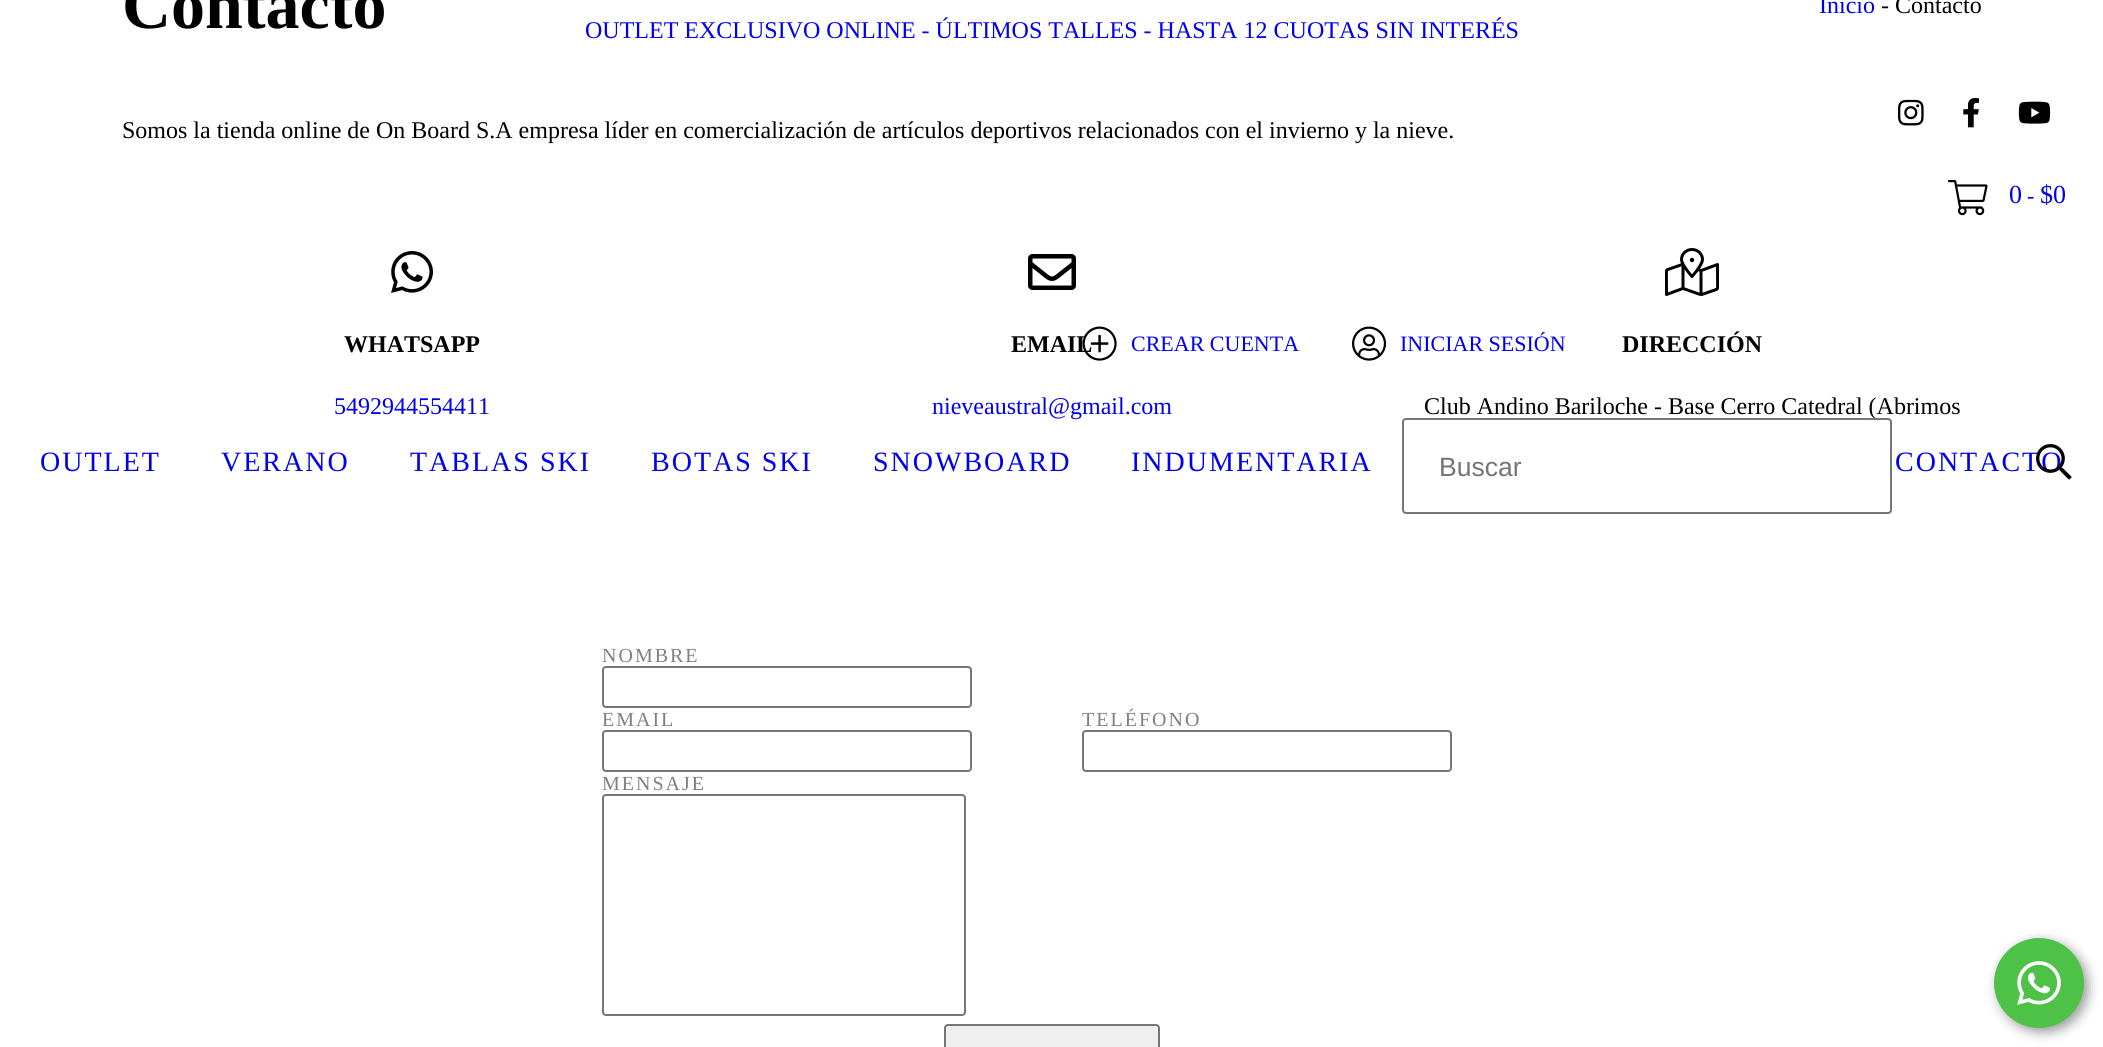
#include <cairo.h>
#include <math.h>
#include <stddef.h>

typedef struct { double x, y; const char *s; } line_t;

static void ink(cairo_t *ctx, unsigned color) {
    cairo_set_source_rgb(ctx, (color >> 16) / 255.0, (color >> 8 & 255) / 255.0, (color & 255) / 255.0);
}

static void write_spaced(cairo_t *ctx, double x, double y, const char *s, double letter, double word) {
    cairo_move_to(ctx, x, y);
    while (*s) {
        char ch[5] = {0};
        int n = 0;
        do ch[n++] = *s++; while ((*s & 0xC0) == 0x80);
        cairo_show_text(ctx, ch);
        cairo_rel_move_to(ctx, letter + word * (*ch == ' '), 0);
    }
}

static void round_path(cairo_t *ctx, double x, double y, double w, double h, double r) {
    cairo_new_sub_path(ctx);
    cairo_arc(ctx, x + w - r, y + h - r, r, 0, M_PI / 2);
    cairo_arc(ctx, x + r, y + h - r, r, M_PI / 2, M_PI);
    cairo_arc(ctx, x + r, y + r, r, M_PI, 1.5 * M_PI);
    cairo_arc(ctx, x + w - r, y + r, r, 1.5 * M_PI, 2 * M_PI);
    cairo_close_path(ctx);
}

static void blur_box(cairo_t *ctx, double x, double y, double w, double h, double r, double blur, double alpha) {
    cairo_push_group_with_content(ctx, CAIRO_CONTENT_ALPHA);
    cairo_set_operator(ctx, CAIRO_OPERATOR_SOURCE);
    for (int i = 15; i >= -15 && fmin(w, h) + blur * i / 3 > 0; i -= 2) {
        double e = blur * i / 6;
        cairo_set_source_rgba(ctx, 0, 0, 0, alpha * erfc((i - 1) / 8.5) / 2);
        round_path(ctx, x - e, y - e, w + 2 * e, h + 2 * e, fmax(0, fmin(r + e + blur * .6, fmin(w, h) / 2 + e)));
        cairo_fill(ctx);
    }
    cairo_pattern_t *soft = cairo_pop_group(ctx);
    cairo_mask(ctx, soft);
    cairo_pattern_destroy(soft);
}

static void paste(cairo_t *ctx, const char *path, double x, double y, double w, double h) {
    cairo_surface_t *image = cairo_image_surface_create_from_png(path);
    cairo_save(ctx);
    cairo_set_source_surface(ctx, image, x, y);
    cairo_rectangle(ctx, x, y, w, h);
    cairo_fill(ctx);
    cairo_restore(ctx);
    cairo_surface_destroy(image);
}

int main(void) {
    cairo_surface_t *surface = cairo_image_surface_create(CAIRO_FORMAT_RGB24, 2103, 1047);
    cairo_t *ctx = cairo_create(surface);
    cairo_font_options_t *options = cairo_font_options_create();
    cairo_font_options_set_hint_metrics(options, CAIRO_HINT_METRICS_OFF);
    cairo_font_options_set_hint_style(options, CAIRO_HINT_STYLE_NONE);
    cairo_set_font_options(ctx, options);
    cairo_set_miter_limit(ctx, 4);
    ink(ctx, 0xFFFFFF);
    cairo_paint(ctx);
    cairo_select_font_face(ctx, "Liberation Serif", CAIRO_FONT_SLANT_NORMAL, CAIRO_FONT_WEIGHT_BOLD);
    cairo_set_font_size(ctx, 68);
    ink(ctx, 0x000000);
    cairo_move_to(ctx, 122, 28);
    cairo_show_text(ctx, "Contacto");
    cairo_select_font_face(ctx, "Liberation Serif", CAIRO_FONT_SLANT_NORMAL, CAIRO_FONT_WEIGHT_NORMAL);
    cairo_set_font_size(ctx, 24);
    ink(ctx, 0x0000EE);
    cairo_move_to(ctx, 1819, 13);
    cairo_show_text(ctx, "Inicio");
    ink(ctx, 0x000000);
    cairo_move_to(ctx, 1881, 13);
    cairo_show_text(ctx, "- Contacto");
    ink(ctx, 0x0000EE);
    cairo_move_to(ctx, 585, 38);
    cairo_show_text(ctx, "OUTLET EXCLUSIVO ONLINE - ÚLTIMOS TALLES - HASTA 12 CUOTAS SIN INTERÉS");
    paste(ctx, "media/1.png", 1898, 99, 26, 27);
    paste(ctx, "media/2.png", 1963, 98, 16, 30);
    paste(ctx, "media/3.png", 2018, 101, 33, 23);
    paste(ctx, "media/4.png", 1948, 180, 40, 36);
    cairo_set_font_size(ctx, 26);
    cairo_move_to(ctx, 2009, 203);
    cairo_show_text(ctx, "0");
    cairo_set_font_size(ctx, 22);
    cairo_move_to(ctx, 2027, 203);
    cairo_show_text(ctx, "-");
    cairo_set_font_size(ctx, 26);
    cairo_move_to(ctx, 2040, 203);
    cairo_show_text(ctx, "$0");
    cairo_select_font_face(ctx, "Liberation Serif", CAIRO_FONT_SLANT_NORMAL, CAIRO_FONT_WEIGHT_BOLD);
    cairo_set_font_size(ctx, 24);
    ink(ctx, 0x000000);
    cairo_move_to(ctx, 1011, 352);
    cairo_show_text(ctx, "EMAIL");
    paste(ctx, "media/5.png", 1082, 326, 35, 35);
    cairo_select_font_face(ctx, "Liberation Serif", CAIRO_FONT_SLANT_NORMAL, CAIRO_FONT_WEIGHT_NORMAL);
    cairo_set_font_size(ctx, 22);
    ink(ctx, 0x0000EE);
    cairo_move_to(ctx, 1131, 351);
    cairo_show_text(ctx, "CREAR CUENTA");
    paste(ctx, "media/6.png", 1352, 326, 35, 35);
    cairo_move_to(ctx, 1400, 351);
    cairo_show_text(ctx, "INICIAR SESIÓN");
    cairo_set_font_size(ctx, 28);
    {
        static const line_t items[] = {
            {40, 471, "OUTLET"},
            {221, 471, "VERANO"},
            {410, 471, "TABLAS SKI"},
            {651, 471, "BOTAS SKI"},
            {873, 471, "SNOWBOARD"},
            {1131, 471, "INDUMENTARIA"},
            {1895, 471, "CONTACTO"},
        };
        for (size_t i = 0; i < sizeof items / sizeof *items; i++) {
            write_spaced(ctx, items[i].x, items[i].y, items[i].s, 2, 0);
        }
    }
    cairo_set_font_size(ctx, 24);
    ink(ctx, 0x000000);
    cairo_move_to(ctx, 1424, 414);
    cairo_show_text(ctx, "Club Andino Bariloche - Base Cerro Catedral (Abrimos");
    ink(ctx, 0xFFFFFF);
    round_path(ctx, 1403, 419, 488, 94, 3);
    cairo_fill_preserve(ctx);
    ink(ctx, 0x767676);
    cairo_stroke(ctx);
    cairo_select_font_face(ctx, "Liberation Sans", CAIRO_FONT_SLANT_NORMAL, CAIRO_FONT_WEIGHT_NORMAL);
    cairo_set_font_size(ctx, 26.5);
    ink(ctx, 0x757575);
    cairo_move_to(ctx, 1439, 476);
    cairo_show_text(ctx, "Buscar");
    paste(ctx, "media/7.png", 2036, 444, 36, 36);
    cairo_select_font_face(ctx, "Liberation Serif", CAIRO_FONT_SLANT_NORMAL, CAIRO_FONT_WEIGHT_NORMAL);
    cairo_set_font_size(ctx, 24);
    ink(ctx, 0x000000);
    cairo_move_to(ctx, 122, 138);
    cairo_show_text(ctx, "Somos la tienda online de On Board S.A empresa líder en comercialización de artículos deportivos relacionados con el invierno y la nieve.");
    paste(ctx, "media/8.png", 391, 251, 42, 42);
    cairo_select_font_face(ctx, "Liberation Serif", CAIRO_FONT_SLANT_NORMAL, CAIRO_FONT_WEIGHT_BOLD);
    cairo_move_to(ctx, 344, 352);
    cairo_show_text(ctx, "WHATSAPP");
    cairo_select_font_face(ctx, "Liberation Serif", CAIRO_FONT_SLANT_NORMAL, CAIRO_FONT_WEIGHT_NORMAL);
    ink(ctx, 0x0000EE);
    cairo_move_to(ctx, 334, 414);
    cairo_show_text(ctx, "5492944554411");
    paste(ctx, "media/9.png", 1028, 254, 48, 36);
    cairo_move_to(ctx, 932, 414);
    cairo_show_text(ctx, "nieveaustral@gmail.com");
    paste(ctx, "media/10.png", 1665, 248, 54, 48);
    cairo_select_font_face(ctx, "Liberation Serif", CAIRO_FONT_SLANT_NORMAL, CAIRO_FONT_WEIGHT_BOLD);
    ink(ctx, 0x000000);
    cairo_move_to(ctx, 1622, 352);
    cairo_show_text(ctx, "DIRECCIÓN");
    cairo_select_font_face(ctx, "Liberation Serif", CAIRO_FONT_SLANT_NORMAL, CAIRO_FONT_WEIGHT_NORMAL);
    cairo_set_font_size(ctx, 20);
    ink(ctx, 0x808080);
    write_spaced(ctx, 602, 662, "NOMBRE", 2, 0);
    round_path(ctx, 603, 667, 368, 40, 3);
    ink(ctx, 0x767676);
    cairo_stroke(ctx);
    ink(ctx, 0x808080);
    write_spaced(ctx, 602, 726, "EMAIL", 2, 0);
    round_path(ctx, 603, 731, 368, 40, 3);
    ink(ctx, 0x767676);
    cairo_stroke(ctx);
    ink(ctx, 0x808080);
    write_spaced(ctx, 1082, 726, "TELÉFONO", 2, 0);
    round_path(ctx, 1083, 731, 368, 40, 3);
    ink(ctx, 0x767676);
    cairo_stroke(ctx);
    ink(ctx, 0x808080);
    write_spaced(ctx, 602, 790, "MENSAJE", 2, 0);
    round_path(ctx, 603, 795, 362, 220, 3);
    ink(ctx, 0x767676);
    cairo_stroke(ctx);
    ink(ctx, 0xEFEFEF);
    round_path(ctx, 945, 1025, 214, 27, 3);
    cairo_fill_preserve(ctx);
    ink(ctx, 0x767676);
    cairo_stroke(ctx);
    ink(ctx, 0x000000);
    blur_box(ctx, 1998, 942, 90, 90, 45, 6, 0.4);
    ink(ctx, 0x4DC247);
    cairo_arc(ctx, 2039, 983, 45, 0, 2 * M_PI);
    cairo_fill(ctx);
    paste(ctx, "media/11.png", 2017, 961, 44, 44);
    cairo_surface_write_to_png(surface, "image.png");
    cairo_font_options_destroy(options);
    cairo_destroy(ctx);
    cairo_surface_destroy(surface);
    return 0;
}
